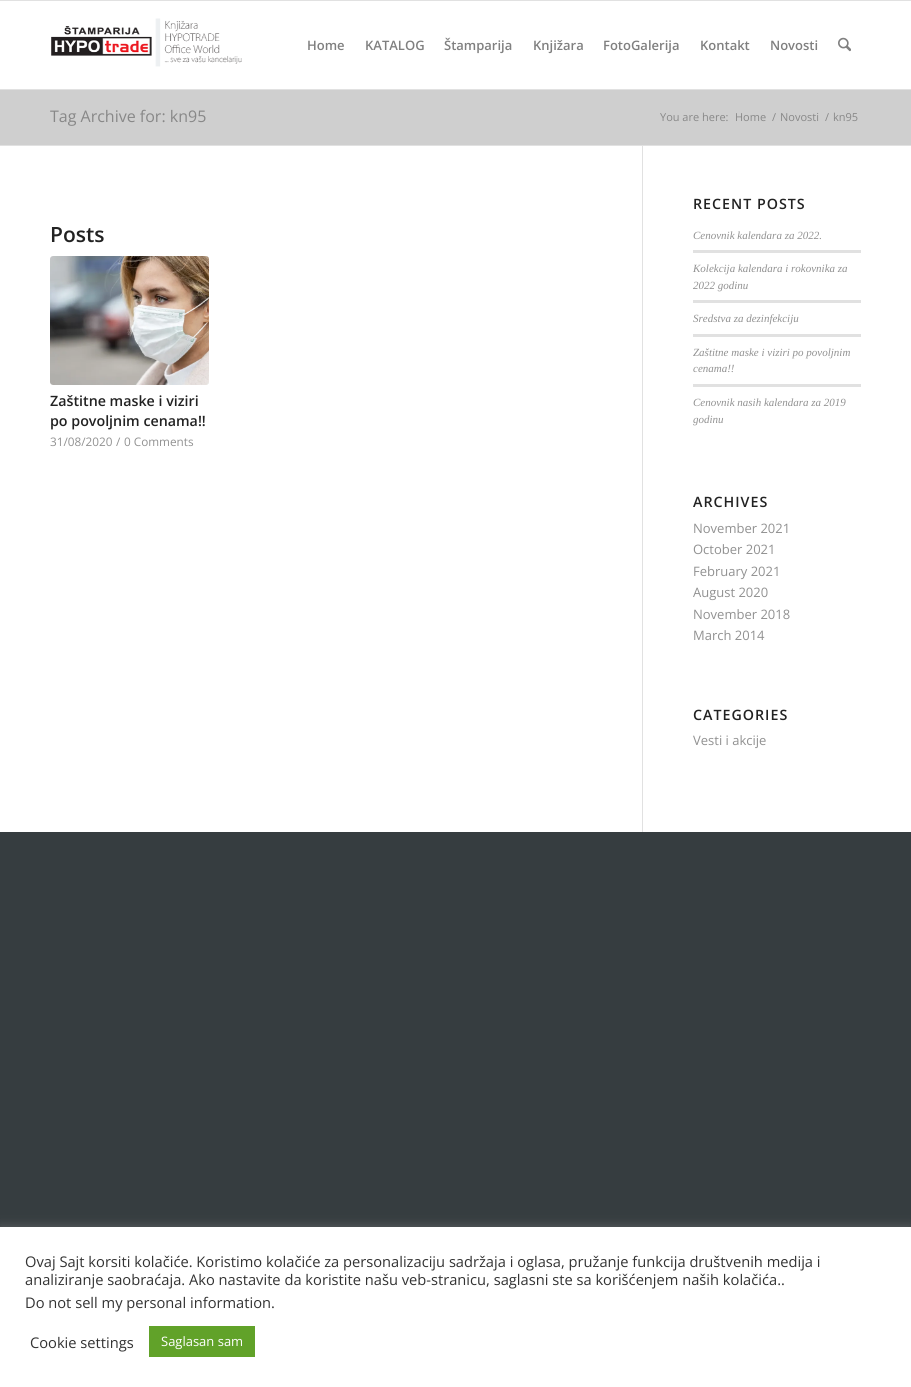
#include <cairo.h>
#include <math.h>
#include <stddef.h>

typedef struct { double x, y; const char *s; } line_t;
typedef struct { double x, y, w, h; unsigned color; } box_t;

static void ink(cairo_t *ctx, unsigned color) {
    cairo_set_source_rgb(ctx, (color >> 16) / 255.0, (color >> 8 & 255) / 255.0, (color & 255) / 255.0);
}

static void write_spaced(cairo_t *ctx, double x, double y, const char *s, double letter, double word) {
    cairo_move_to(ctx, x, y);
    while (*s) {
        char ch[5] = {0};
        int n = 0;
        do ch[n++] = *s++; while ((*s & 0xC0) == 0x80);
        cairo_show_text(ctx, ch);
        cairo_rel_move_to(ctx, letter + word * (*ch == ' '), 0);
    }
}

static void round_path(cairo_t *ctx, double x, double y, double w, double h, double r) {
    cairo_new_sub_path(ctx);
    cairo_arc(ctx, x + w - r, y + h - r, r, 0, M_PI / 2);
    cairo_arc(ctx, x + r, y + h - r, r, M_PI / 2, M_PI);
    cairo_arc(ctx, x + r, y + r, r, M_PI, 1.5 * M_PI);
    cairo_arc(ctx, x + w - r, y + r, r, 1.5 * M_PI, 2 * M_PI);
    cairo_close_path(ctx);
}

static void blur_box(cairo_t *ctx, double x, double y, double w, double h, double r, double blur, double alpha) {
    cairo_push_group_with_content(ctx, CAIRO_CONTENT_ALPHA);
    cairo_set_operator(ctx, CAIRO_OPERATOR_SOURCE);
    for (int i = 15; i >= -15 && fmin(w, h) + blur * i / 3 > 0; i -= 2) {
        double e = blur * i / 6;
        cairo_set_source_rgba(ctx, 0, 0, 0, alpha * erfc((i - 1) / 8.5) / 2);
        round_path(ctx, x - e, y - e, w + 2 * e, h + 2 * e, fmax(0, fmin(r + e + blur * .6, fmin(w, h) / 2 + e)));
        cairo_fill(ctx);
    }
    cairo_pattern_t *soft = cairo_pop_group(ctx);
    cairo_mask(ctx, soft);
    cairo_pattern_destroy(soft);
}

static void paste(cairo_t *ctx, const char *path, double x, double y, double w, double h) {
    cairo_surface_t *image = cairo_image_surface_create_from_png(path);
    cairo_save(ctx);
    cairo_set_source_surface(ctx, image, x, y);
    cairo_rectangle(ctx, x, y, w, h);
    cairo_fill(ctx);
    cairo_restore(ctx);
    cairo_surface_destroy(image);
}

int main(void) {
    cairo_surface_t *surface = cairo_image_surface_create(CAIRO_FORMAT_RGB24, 911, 1387);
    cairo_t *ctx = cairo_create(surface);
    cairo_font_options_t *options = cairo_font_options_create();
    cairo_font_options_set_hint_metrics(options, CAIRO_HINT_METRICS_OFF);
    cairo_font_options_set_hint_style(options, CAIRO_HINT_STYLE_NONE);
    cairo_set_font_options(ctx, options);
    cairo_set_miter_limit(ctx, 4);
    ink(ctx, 0x363D40);
    cairo_paint(ctx);
    {
        static const box_t items[] = {
            {0, 1, 911, 88, 0xFFFFFF},
            {0, 0, 911, 1, 0xE1E1E1},
            {0, 89, 911, 1, 0xE1E1E1},
        };
        for (size_t i = 0; i < sizeof items / sizeof *items; i++) {
            ink(ctx, items[i].color);
            cairo_rectangle(ctx, items[i].x, items[i].y, items[i].w, items[i].h);
            cairo_fill(ctx);
        }
    }
    paste(ctx, "media/1.png", 51, 18, 191, 49);
    cairo_select_font_face(ctx, "Open Sans SemiBold", CAIRO_FONT_SLANT_NORMAL, CAIRO_FONT_WEIGHT_NORMAL);
    cairo_set_font_size(ctx, 13);
    ink(ctx, 0x808080);
    {
        static const line_t items[] = {
            {307, 50, "Home"},
            {365, 50, "KATALOG"},
            {444, 50, "Štamparija"},
            {533, 50, "Knjižara"},
            {603, 50, "FotoGalerija"},
            {700, 50, "Kontakt"},
            {770, 50, "Novosti"},
        };
        for (size_t i = 0; i < sizeof items / sizeof *items; i++) {
            cairo_move_to(ctx, items[i].x, items[i].y);
            cairo_show_text(ctx, items[i].s);
        }
    }
    paste(ctx, "media/2.png", 838, 37, 13, 15);
    ink(ctx, 0xFFFFFF);
    cairo_rectangle(ctx, 0, 146, 911, 686);
    cairo_fill(ctx);
    ink(ctx, 0xCFCFCF);
    cairo_rectangle(ctx, 0, 90, 911, 55);
    cairo_fill(ctx);
    cairo_select_font_face(ctx, "Open Sans", CAIRO_FONT_SLANT_NORMAL, CAIRO_FONT_WEIGHT_NORMAL);
    cairo_set_font_size(ctx, 16);
    ink(ctx, 0x888888);
    cairo_move_to(ctx, 50, 122);
    cairo_show_text(ctx, "Tag Archive for: kn95");
    cairo_set_font_size(ctx, 11);
    {
        static const line_t items[] = {
            {660, 121, "You are here:"},
            {735, 121, "Home"},
            {772, 121, "/"},
            {780, 121, "Novosti"},
            {825, 121, "/"},
            {833, 121, "kn95"},
        };
        for (size_t i = 0; i < sizeof items / sizeof *items; i++) {
            cairo_move_to(ctx, items[i].x, items[i].y);
            cairo_show_text(ctx, items[i].s);
        }
    }
    ink(ctx, 0xE1E1E1);
    cairo_rectangle(ctx, 0, 145, 911, 1);
    cairo_fill(ctx);
    cairo_select_font_face(ctx, "Open Sans SemiBold", CAIRO_FONT_SLANT_NORMAL, CAIRO_FONT_WEIGHT_NORMAL);
    cairo_set_font_size(ctx, 21);
    ink(ctx, 0x222222);
    cairo_move_to(ctx, 50, 242);
    cairo_show_text(ctx, "Posts");
    ink(ctx, 0xF0F0F0);
    round_path(ctx, 50, 256, 159, 129, 3);
    cairo_fill(ctx);
    paste(ctx, "media/3.png", 50, 256, 159, 129);
    cairo_set_font_size(ctx, 14.25);
    ink(ctx, 0x222222);
    cairo_move_to(ctx, 50, 406);
    cairo_show_text(ctx, "Zaštitne maske i viziri");
    cairo_move_to(ctx, 50, 426);
    cairo_show_text(ctx, "po povoljnim cenama!!");
    cairo_select_font_face(ctx, "Open Sans", CAIRO_FONT_SLANT_NORMAL, CAIRO_FONT_WEIGHT_NORMAL);
    cairo_set_font_size(ctx, 11.75);
    ink(ctx, 0x919191);
    {
        static const line_t items[] = {
            {50, 446, "31/08/2020"},
            {116, 446, "/"},
            {124, 446, "0 Comments"},
        };
        for (size_t i = 0; i < sizeof items / sizeof *items; i++) {
            cairo_move_to(ctx, items[i].x, items[i].y);
            cairo_show_text(ctx, items[i].s);
        }
    }
    ink(ctx, 0xE1E1E1);
    cairo_rectangle(ctx, 642, 146, 1, 686);
    cairo_fill(ctx);
    cairo_select_font_face(ctx, "Open Sans SemiBold", CAIRO_FONT_SLANT_NORMAL, CAIRO_FONT_WEIGHT_NORMAL);
    cairo_set_font_size(ctx, 14.25);
    ink(ctx, 0x222222);
    write_spaced(ctx, 693, 209, "RECENT POSTS", 1, 0);
    cairo_select_font_face(ctx, "Liberation Serif", CAIRO_FONT_SLANT_ITALIC, CAIRO_FONT_WEIGHT_NORMAL);
    cairo_set_font_size(ctx, 11);
    ink(ctx, 0x919191);
    cairo_move_to(ctx, 693, 239);
    cairo_show_text(ctx, "Cenovnik kalendara za 2022.");
    ink(ctx, 0xE1E1E1);
    cairo_rectangle(ctx, 693, 250, 168, 3);
    cairo_fill(ctx);
    ink(ctx, 0x919191);
    cairo_move_to(ctx, 693, 272);
    cairo_show_text(ctx, "Kolekcija kalendara i rokovnika za");
    cairo_move_to(ctx, 693, 289);
    cairo_show_text(ctx, "2022 godinu");
    ink(ctx, 0xE1E1E1);
    cairo_rectangle(ctx, 693, 300, 168, 3);
    cairo_fill(ctx);
    ink(ctx, 0x919191);
    cairo_move_to(ctx, 693, 322);
    cairo_show_text(ctx, "Sredstva za dezinfekciju");
    ink(ctx, 0xE1E1E1);
    cairo_rectangle(ctx, 693, 334, 168, 3);
    cairo_fill(ctx);
    ink(ctx, 0x919191);
    cairo_move_to(ctx, 693, 356);
    cairo_show_text(ctx, "Zaštitne maske i viziri po povoljnim");
    cairo_move_to(ctx, 693, 372);
    cairo_show_text(ctx, "cenama!!");
    ink(ctx, 0xE1E1E1);
    cairo_rectangle(ctx, 693, 384, 168, 3);
    cairo_fill(ctx);
    ink(ctx, 0x919191);
    cairo_move_to(ctx, 693, 406);
    cairo_show_text(ctx, "Cenovnik nasih kalendara za 2019");
    cairo_move_to(ctx, 693, 423);
    cairo_show_text(ctx, "godinu");
    cairo_select_font_face(ctx, "Open Sans SemiBold", CAIRO_FONT_SLANT_NORMAL, CAIRO_FONT_WEIGHT_NORMAL);
    cairo_set_font_size(ctx, 14.25);
    ink(ctx, 0x222222);
    write_spaced(ctx, 693, 507, "ARCHIVES", 1, 0);
    cairo_select_font_face(ctx, "Open Sans", CAIRO_FONT_SLANT_NORMAL, CAIRO_FONT_WEIGHT_NORMAL);
    cairo_set_font_size(ctx, 13);
    ink(ctx, 0x919191);
    {
        static const line_t items[] = {
            {693, 533, "November 2021"},
            {693, 554, "October 2021"},
            {693, 576, "February 2021"},
            {693, 597, "August 2020"},
            {693, 619, "November 2018"},
            {693, 640, "March 2014"},
        };
        for (size_t i = 0; i < sizeof items / sizeof *items; i++) {
            cairo_move_to(ctx, items[i].x, items[i].y);
            cairo_show_text(ctx, items[i].s);
        }
    }
    cairo_select_font_face(ctx, "Open Sans SemiBold", CAIRO_FONT_SLANT_NORMAL, CAIRO_FONT_WEIGHT_NORMAL);
    cairo_set_font_size(ctx, 14.25);
    ink(ctx, 0x222222);
    write_spaced(ctx, 693, 720, "CATEGORIES", 1, 0);
    cairo_select_font_face(ctx, "Open Sans", CAIRO_FONT_SLANT_NORMAL, CAIRO_FONT_WEIGHT_NORMAL);
    cairo_set_font_size(ctx, 13);
    ink(ctx, 0x919191);
    cairo_move_to(ctx, 693, 745);
    cairo_show_text(ctx, "Vesti i akcije");
    ink(ctx, 0xACABAB);
    blur_box(ctx, 0, 1226, 911, 160, 0, 5, 0.3);
    ink(ctx, 0xFFFFFF);
    cairo_rectangle(ctx, 0, 1227, 911, 160);
    cairo_fill(ctx);
    cairo_set_font_size(ctx, 14.67);
    ink(ctx, 0x333333);
    {
        static const line_t items[] = {
            {25, 1267, "Ovaj Sajt korsiti kolačiće. Koristimo kolačiće za personalizaciju sadržaja i oglasa, pružanje funkcija društvenih medija i"},
            {25, 1285, "analiziranje saobraćaja. Ako nastavite da koristite našu veb-stranicu, saglasni ste sa korišćenjem naših kolačića.."},
            {25, 1308, "Do not sell my personal information."},
            {30, 1348, "Cookie settings"},
        };
        for (size_t i = 0; i < sizeof items / sizeof *items; i++) {
            cairo_move_to(ctx, items[i].x, items[i].y);
            cairo_show_text(ctx, items[i].s);
        }
    }
    ink(ctx, 0x61A229);
    cairo_rectangle(ctx, 149, 1326, 106, 31);
    cairo_fill(ctx);
    cairo_set_font_size(ctx, 13);
    ink(ctx, 0xFFFFFF);
    cairo_move_to(ctx, 161, 1346);
    cairo_show_text(ctx, "Saglasan sam");
    cairo_surface_write_to_png(surface, "image.png");
    cairo_font_options_destroy(options);
    cairo_destroy(ctx);
    cairo_surface_destroy(surface);
    return 0;
}
